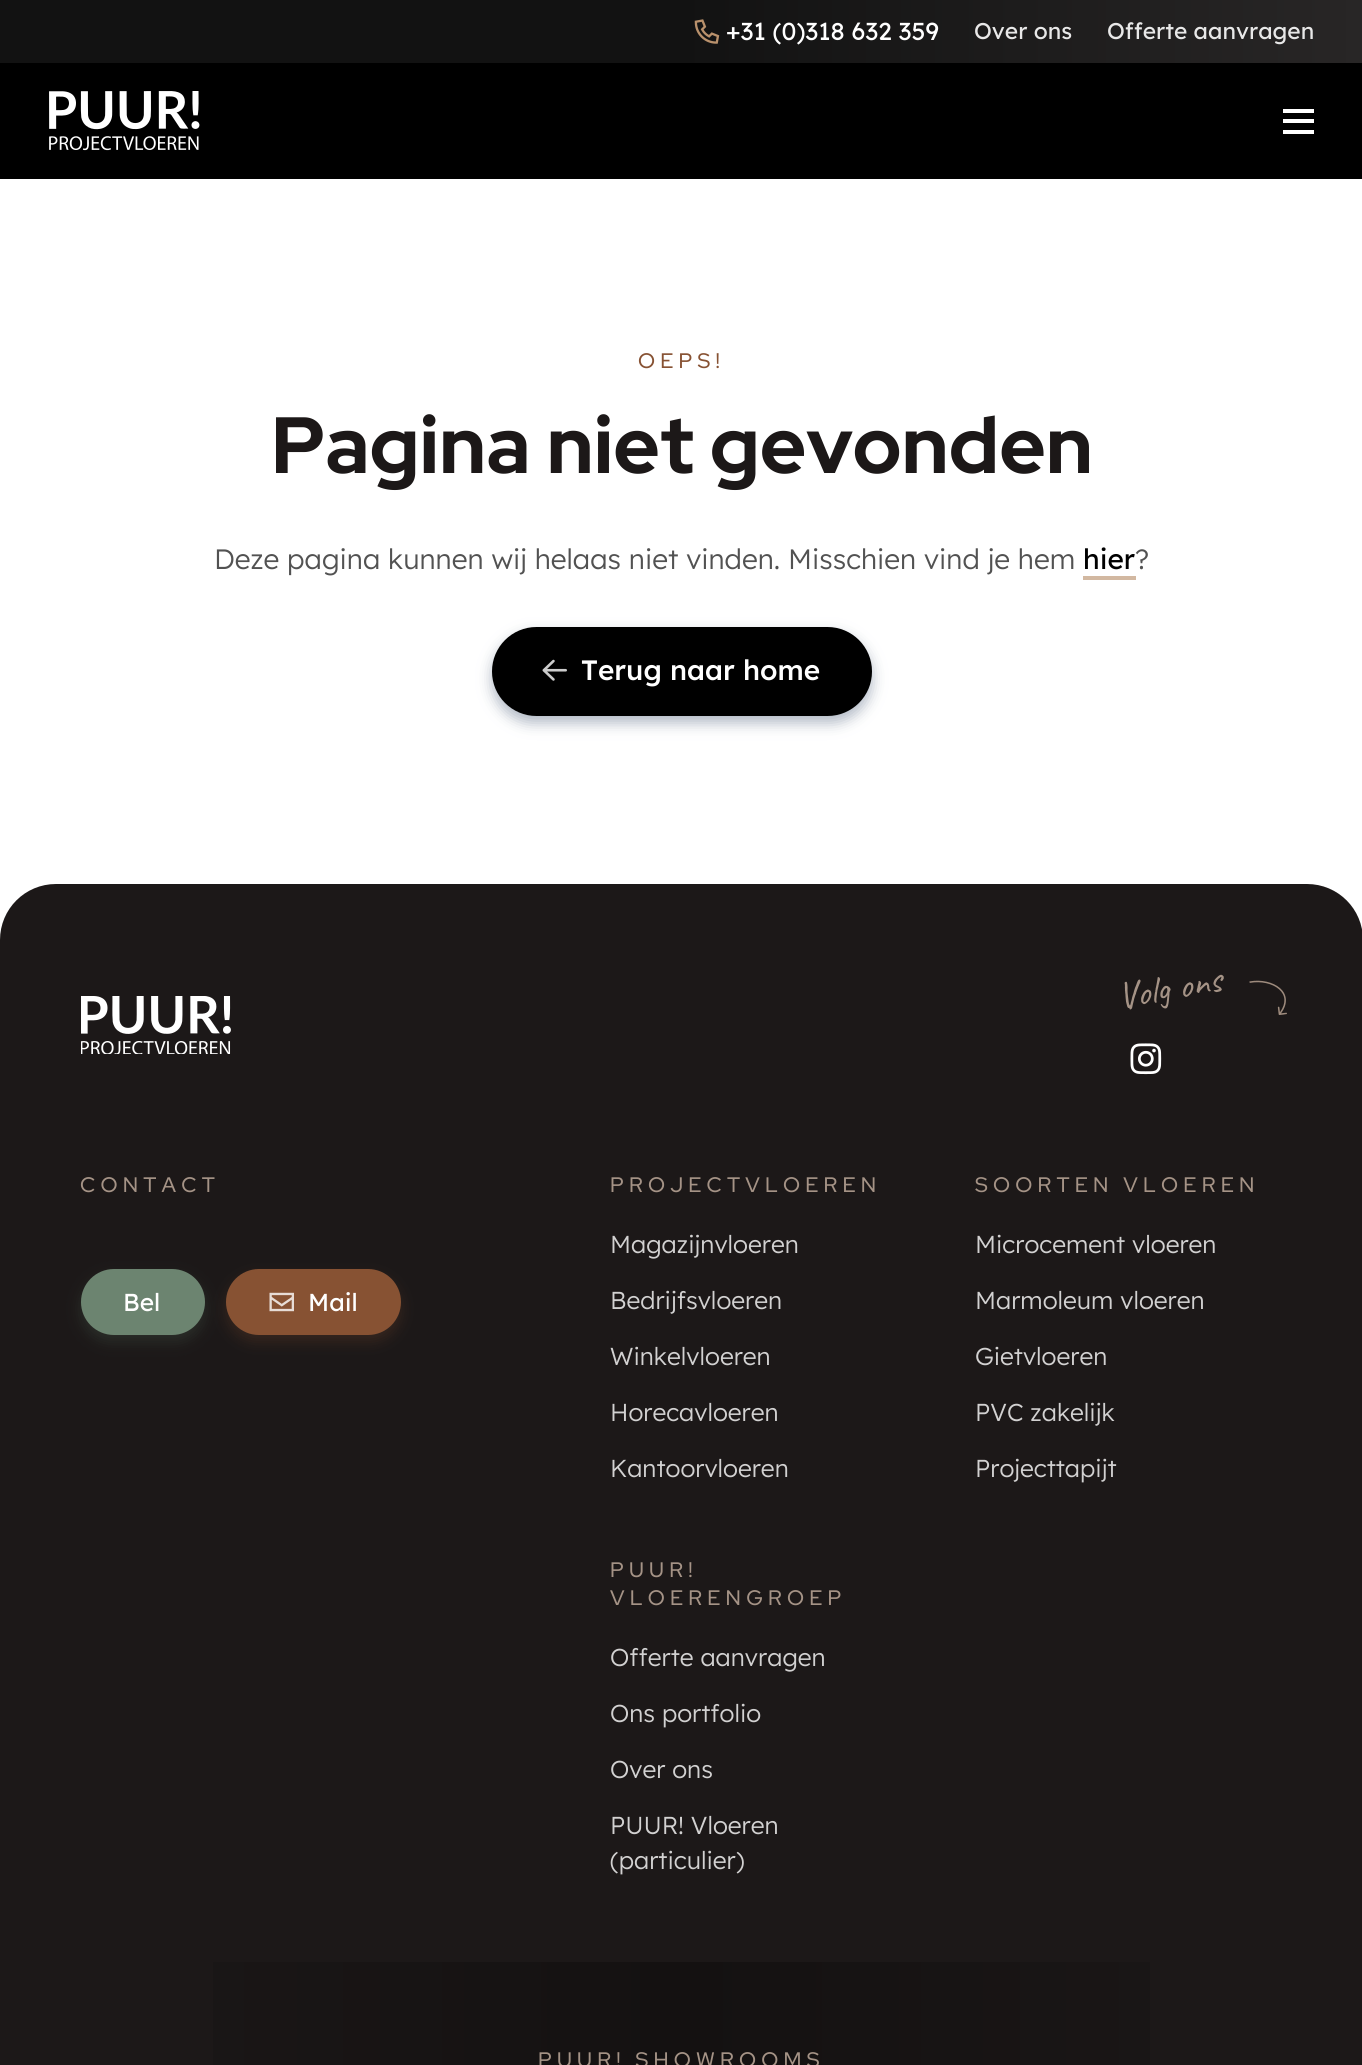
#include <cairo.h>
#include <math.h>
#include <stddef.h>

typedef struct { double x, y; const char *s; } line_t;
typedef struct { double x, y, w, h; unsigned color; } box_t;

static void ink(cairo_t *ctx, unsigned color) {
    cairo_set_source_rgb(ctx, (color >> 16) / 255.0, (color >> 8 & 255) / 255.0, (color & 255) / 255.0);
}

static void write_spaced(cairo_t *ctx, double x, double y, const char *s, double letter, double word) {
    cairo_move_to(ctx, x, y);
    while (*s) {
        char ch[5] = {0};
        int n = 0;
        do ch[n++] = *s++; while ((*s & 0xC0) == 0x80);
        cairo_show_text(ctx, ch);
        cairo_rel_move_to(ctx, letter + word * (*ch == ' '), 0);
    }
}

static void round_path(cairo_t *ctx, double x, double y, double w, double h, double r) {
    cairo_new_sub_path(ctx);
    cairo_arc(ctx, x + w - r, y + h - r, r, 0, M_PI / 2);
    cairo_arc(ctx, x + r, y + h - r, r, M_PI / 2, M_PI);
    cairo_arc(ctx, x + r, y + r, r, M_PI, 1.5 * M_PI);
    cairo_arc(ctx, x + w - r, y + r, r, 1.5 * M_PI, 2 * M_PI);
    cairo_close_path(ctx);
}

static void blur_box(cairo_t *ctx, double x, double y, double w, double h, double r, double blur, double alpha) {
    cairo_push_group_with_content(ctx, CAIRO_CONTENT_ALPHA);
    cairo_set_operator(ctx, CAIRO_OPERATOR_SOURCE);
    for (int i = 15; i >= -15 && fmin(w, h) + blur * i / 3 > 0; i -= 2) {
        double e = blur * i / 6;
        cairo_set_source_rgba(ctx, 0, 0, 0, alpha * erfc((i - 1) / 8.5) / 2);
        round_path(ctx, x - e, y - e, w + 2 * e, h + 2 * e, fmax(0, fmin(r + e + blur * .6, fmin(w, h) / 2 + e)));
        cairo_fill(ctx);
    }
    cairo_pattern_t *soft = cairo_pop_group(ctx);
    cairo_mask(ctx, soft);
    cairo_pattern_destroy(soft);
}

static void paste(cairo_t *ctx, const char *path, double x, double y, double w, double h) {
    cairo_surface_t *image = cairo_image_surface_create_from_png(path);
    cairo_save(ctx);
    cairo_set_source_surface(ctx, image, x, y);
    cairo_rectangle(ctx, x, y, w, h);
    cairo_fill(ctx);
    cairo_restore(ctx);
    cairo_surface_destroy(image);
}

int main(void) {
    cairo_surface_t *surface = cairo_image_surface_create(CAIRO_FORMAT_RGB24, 1362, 2065);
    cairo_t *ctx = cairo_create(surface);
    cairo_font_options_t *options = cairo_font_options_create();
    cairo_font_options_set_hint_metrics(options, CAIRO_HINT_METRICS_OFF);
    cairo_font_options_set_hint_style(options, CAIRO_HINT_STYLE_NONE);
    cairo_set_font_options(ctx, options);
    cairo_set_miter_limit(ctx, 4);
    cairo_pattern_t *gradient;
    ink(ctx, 0xFFFFFF);
    cairo_paint(ctx);
    gradient = cairo_pattern_create_linear(0, 32, 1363, 31);
    cairo_pattern_add_color_stop_rgba(gradient, 0, 0.071, 0.071, 0.071, 1);
    cairo_pattern_add_color_stop_rgba(gradient, 0.5, 0.071, 0.071, 0.071, 1);
    cairo_pattern_add_color_stop_rgba(gradient, 1, 0.157, 0.149, 0.149, 1);
    cairo_set_source(ctx, gradient);
    cairo_pattern_destroy(gradient);
    cairo_rectangle(ctx, 0, 0, 1362, 63);
    cairo_fill(ctx);
    paste(ctx, "media/1.png", 694, 19, 26, 25);
    cairo_select_font_face(ctx, "Lexend", CAIRO_FONT_SLANT_NORMAL, CAIRO_FONT_WEIGHT_NORMAL);
    cairo_set_font_size(ctx, 24.5);
    ink(ctx, 0xFFFFFF);
    cairo_move_to(ctx, 726, 40);
    cairo_show_text(ctx, "+31 (0)318 632 359");
    cairo_set_font_size(ctx, 22.75);
    ink(ctx, 0xE8E8E8);
    cairo_move_to(ctx, 974, 39);
    cairo_show_text(ctx, "Over ons");
    cairo_move_to(ctx, 1107, 39);
    cairo_show_text(ctx, "Offerte aanvragen");
    ink(ctx, 0x000000);
    cairo_rectangle(ctx, 0, 63, 1362, 116);
    cairo_fill(ctx);
    paste(ctx, "media/2.png", 49, 91, 151, 60);
    {
        static const box_t items[] = {
            {1283, 109, 31, 4, 0xFFFFFF},
            {1283, 119, 31, 4, 0xFFFFFF},
            {1283, 130, 31, 4, 0xFFFFFF},
        };
        for (size_t i = 0; i < sizeof items / sizeof *items; i++) {
            ink(ctx, items[i].color);
            cairo_rectangle(ctx, items[i].x, items[i].y, items[i].w, items[i].h);
            cairo_fill(ctx);
        }
    }
    cairo_select_font_face(ctx, "Red Hat Display Medium", CAIRO_FONT_SLANT_NORMAL, CAIRO_FONT_WEIGHT_NORMAL);
    cairo_set_font_size(ctx, 21);
    ink(ctx, 0x875233);
    write_spaced(ctx, 638, 368, "OEPS!", 5.25, 0);
    cairo_select_font_face(ctx, "Red Hat Display ExtraBold", CAIRO_FONT_SLANT_NORMAL, CAIRO_FONT_WEIGHT_NORMAL);
    cairo_set_font_size(ctx, 79.6);
    ink(ctx, 0x1C1818);
    cairo_move_to(ctx, 271, 473);
    cairo_show_text(ctx, "Pagina niet gevonden");
    cairo_select_font_face(ctx, "Lexend Light", CAIRO_FONT_SLANT_NORMAL, CAIRO_FONT_WEIGHT_NORMAL);
    cairo_set_font_size(ctx, 28);
    ink(ctx, 0x525252);
    cairo_move_to(ctx, 214, 569);
    cairo_show_text(ctx, "Deze pagina kunnen wij helaas niet vinden. Misschien vind je hem");
    cairo_select_font_face(ctx, "Lexend", CAIRO_FONT_SLANT_NORMAL, CAIRO_FONT_WEIGHT_NORMAL);
    ink(ctx, 0x000000);
    cairo_move_to(ctx, 1083, 569);
    cairo_show_text(ctx, "hier");
    ink(ctx, 0xD2B8A1);
    cairo_rectangle(ctx, 1083, 576, 53, 4);
    cairo_fill(ctx);
    cairo_select_font_face(ctx, "Lexend Light", CAIRO_FONT_SLANT_NORMAL, CAIRO_FONT_WEIGHT_NORMAL);
    ink(ctx, 0x525252);
    cairo_move_to(ctx, 1135, 569);
    cairo_show_text(ctx, "?");
    ink(ctx, 0x64748B);
    blur_box(ctx, 492, 634, 380, 89, 44.5, 7, 0.5);
    ink(ctx, 0x000000);
    round_path(ctx, 492, 627, 380, 89, 44.5);
    cairo_fill(ctx);
    paste(ctx, "media/3.png", 542, 659, 25, 22);
    cairo_select_font_face(ctx, "Lexend Medium", CAIRO_FONT_SLANT_NORMAL, CAIRO_FONT_WEIGHT_NORMAL);
    ink(ctx, 0xFFFFFF);
    cairo_move_to(ctx, 581, 680);
    cairo_show_text(ctx, "Terug naar home");
    ink(ctx, 0x1C1818);
    cairo_new_path(ctx);
    cairo_move_to(ctx, 56, 884);
    cairo_line_to(ctx, 1307, 884);
    cairo_curve_to(ctx, 1338, 884, 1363, 909, 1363, 940);
    cairo_line_to(ctx, 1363, 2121);
    cairo_line_to(ctx, 0, 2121);
    cairo_line_to(ctx, 0, 940);
    cairo_curve_to(ctx, 0, 909, 25, 884, 56, 884);
    cairo_close_path(ctx);
    cairo_fill(ctx);
    cairo_select_font_face(ctx, "Caveat", CAIRO_FONT_SLANT_NORMAL, CAIRO_FONT_WEIGHT_NORMAL);
    cairo_set_font_size(ctx, 38);
    ink(ctx, 0xA59386);
    cairo_save(ctx);
    cairo_translate(ctx, 1120, 1009);
    cairo_rotate(ctx, -10 * M_PI / 180);
    cairo_move_to(ctx, 0, 0);
    cairo_show_text(ctx, "Volg ons");
    cairo_restore(ctx);
    paste(ctx, "media/4.png", 1249, 980, 38, 35);
    paste(ctx, "media/5.png", 1130, 1043, 32, 32);
    paste(ctx, "media/6.png", 81, 996, 150, 58);
    cairo_select_font_face(ctx, "Red Hat Display Medium", CAIRO_FONT_SLANT_NORMAL, CAIRO_FONT_WEIGHT_NORMAL);
    cairo_set_font_size(ctx, 21);
    write_spaced(ctx, 80, 1192, "CONTACT", 5.25, 0);
    ink(ctx, 0x3E4C40);
    blur_box(ctx, 81, 1276, 124, 66, 33, 7, 0.4);
    ink(ctx, 0x6C8470);
    round_path(ctx, 81, 1269, 124, 66, 33);
    cairo_fill(ctx);
    cairo_select_font_face(ctx, "Lexend", CAIRO_FONT_SLANT_NORMAL, CAIRO_FONT_WEIGHT_NORMAL);
    cairo_set_font_size(ctx, 24.5);
    ink(ctx, 0xFFFFFF);
    cairo_move_to(ctx, 123, 1311);
    cairo_show_text(ctx, "Bel");
    ink(ctx, 0x71452B);
    blur_box(ctx, 226, 1276, 175, 66, 33, 7, 0.3);
    ink(ctx, 0x875233);
    round_path(ctx, 226, 1269, 175, 66, 33);
    cairo_fill(ctx);
    paste(ctx, "media/7.png", 269, 1292, 25, 20);
    ink(ctx, 0xFFFFFF);
    cairo_move_to(ctx, 308, 1311);
    cairo_show_text(ctx, "Mail");
    cairo_select_font_face(ctx, "Red Hat Display Medium", CAIRO_FONT_SLANT_NORMAL, CAIRO_FONT_WEIGHT_NORMAL);
    cairo_set_font_size(ctx, 21);
    ink(ctx, 0xA59386);
    write_spaced(ctx, 610, 1192, "PROJECTVLOEREN", 5.25, 0);
    cairo_select_font_face(ctx, "Lexend Light", CAIRO_FONT_SLANT_NORMAL, CAIRO_FONT_WEIGHT_NORMAL);
    cairo_set_font_size(ctx, 24.5);
    ink(ctx, 0xD2D1D1);
    {
        static const line_t items[] = {
            {610, 1253, "Magazijnvloeren"},
            {610, 1309, "Bedrijfsvloeren"},
            {610, 1365, "Winkelvloeren"},
            {610, 1421, "Horecavloeren"},
            {610, 1477, "Kantoorvloeren"},
        };
        for (size_t i = 0; i < sizeof items / sizeof *items; i++) {
            cairo_move_to(ctx, items[i].x, items[i].y);
            cairo_show_text(ctx, items[i].s);
        }
    }
    cairo_select_font_face(ctx, "Red Hat Display Medium", CAIRO_FONT_SLANT_NORMAL, CAIRO_FONT_WEIGHT_NORMAL);
    cairo_set_font_size(ctx, 21);
    ink(ctx, 0xA59386);
    write_spaced(ctx, 975, 1192, "SOORTEN VLOEREN", 5.25, 0);
    cairo_select_font_face(ctx, "Lexend Light", CAIRO_FONT_SLANT_NORMAL, CAIRO_FONT_WEIGHT_NORMAL);
    cairo_set_font_size(ctx, 24.5);
    ink(ctx, 0xD2D1D1);
    {
        static const line_t items[] = {
            {975, 1253, "Microcement vloeren"},
            {975, 1309, "Marmoleum vloeren"},
            {975, 1365, "Gietvloeren"},
            {975, 1421, "PVC zakelijk"},
            {975, 1477, "Projecttapijt"},
        };
        for (size_t i = 0; i < sizeof items / sizeof *items; i++) {
            cairo_move_to(ctx, items[i].x, items[i].y);
            cairo_show_text(ctx, items[i].s);
        }
    }
    cairo_select_font_face(ctx, "Red Hat Display Medium", CAIRO_FONT_SLANT_NORMAL, CAIRO_FONT_WEIGHT_NORMAL);
    cairo_set_font_size(ctx, 21);
    ink(ctx, 0xA59386);
    write_spaced(ctx, 610, 1577, "PUUR!", 5.25, 0);
    write_spaced(ctx, 610, 1605, "VLOERENGROEP", 5.25, 0);
    cairo_select_font_face(ctx, "Lexend Light", CAIRO_FONT_SLANT_NORMAL, CAIRO_FONT_WEIGHT_NORMAL);
    cairo_set_font_size(ctx, 24.5);
    ink(ctx, 0xD2D1D1);
    {
        static const line_t items[] = {
            {610, 1666, "Offerte aanvragen"},
            {610, 1722, "Ons portfolio"},
            {610, 1778, "Over ons"},
            {610, 1834, "PUUR! Vloeren"},
            {610, 1869, "(particulier)"},
        };
        for (size_t i = 0; i < sizeof items / sizeof *items; i++) {
            cairo_move_to(ctx, items[i].x, items[i].y);
            cairo_show_text(ctx, items[i].s);
        }
    }
    gradient = cairo_pattern_create_linear(0, 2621, 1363, 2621);
    cairo_pattern_add_color_stop_rgba(gradient, 0, 0.11, 0.094, 0.094, 1);
    cairo_pattern_add_color_stop_rgba(gradient, 0.5, 0.078, 0.067, 0.067, 1);
    cairo_pattern_add_color_stop_rgba(gradient, 1, 0.11, 0.094, 0.094, 1);
    cairo_set_source(ctx, gradient);
    cairo_pattern_destroy(gradient);
    cairo_rectangle(ctx, 213, 1962, 937, 103);
    cairo_fill(ctx);
    cairo_select_font_face(ctx, "Red Hat Display Medium", CAIRO_FONT_SLANT_NORMAL, CAIRO_FONT_WEIGHT_NORMAL);
    cairo_set_font_size(ctx, 21);
    ink(ctx, 0xA59386);
    write_spaced(ctx, 538, 2067, "PUUR! SHOWROOMS", 5.25, 0);
    cairo_surface_write_to_png(surface, "image.png");
    cairo_font_options_destroy(options);
    cairo_destroy(ctx);
    cairo_surface_destroy(surface);
    return 0;
}
